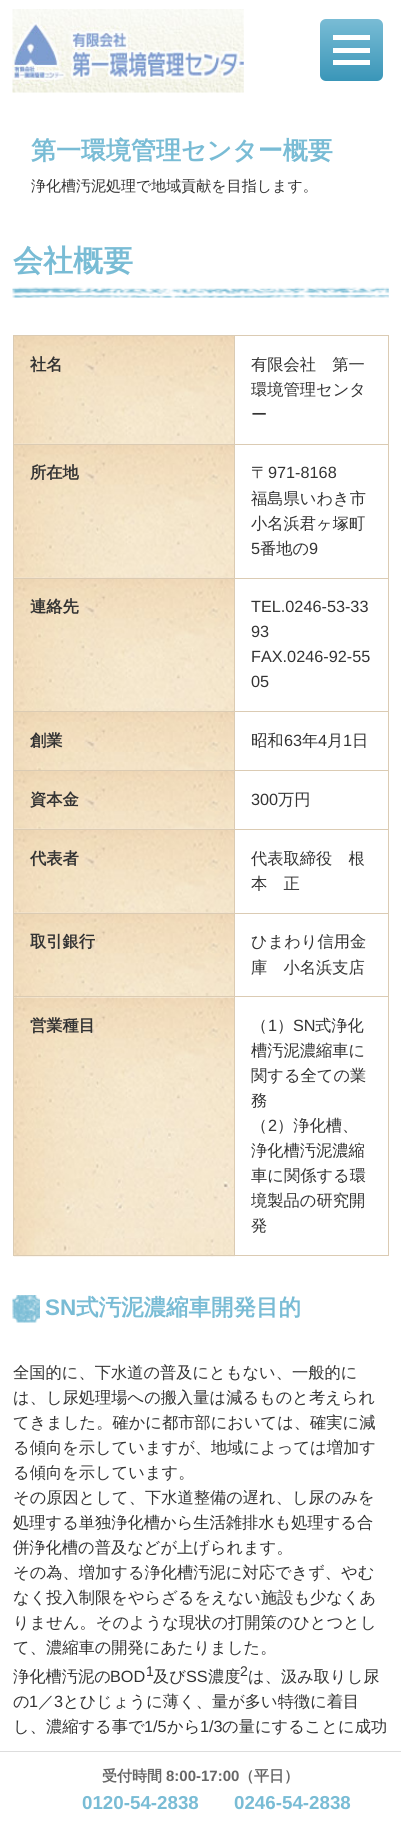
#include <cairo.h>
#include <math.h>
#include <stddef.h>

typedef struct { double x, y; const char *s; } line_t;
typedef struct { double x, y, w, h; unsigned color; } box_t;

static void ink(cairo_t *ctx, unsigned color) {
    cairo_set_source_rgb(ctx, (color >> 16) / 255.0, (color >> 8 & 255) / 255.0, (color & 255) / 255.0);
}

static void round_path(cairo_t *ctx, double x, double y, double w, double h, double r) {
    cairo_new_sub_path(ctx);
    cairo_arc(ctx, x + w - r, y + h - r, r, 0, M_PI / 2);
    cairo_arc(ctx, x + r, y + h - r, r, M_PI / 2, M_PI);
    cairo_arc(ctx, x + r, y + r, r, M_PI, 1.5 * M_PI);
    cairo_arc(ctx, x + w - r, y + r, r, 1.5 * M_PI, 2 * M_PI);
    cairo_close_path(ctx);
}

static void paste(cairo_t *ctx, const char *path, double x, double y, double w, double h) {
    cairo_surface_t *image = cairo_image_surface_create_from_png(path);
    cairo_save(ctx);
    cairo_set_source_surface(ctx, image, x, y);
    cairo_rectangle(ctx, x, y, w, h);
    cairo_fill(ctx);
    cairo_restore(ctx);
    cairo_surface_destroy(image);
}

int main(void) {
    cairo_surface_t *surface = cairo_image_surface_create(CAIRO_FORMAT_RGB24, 401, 1826);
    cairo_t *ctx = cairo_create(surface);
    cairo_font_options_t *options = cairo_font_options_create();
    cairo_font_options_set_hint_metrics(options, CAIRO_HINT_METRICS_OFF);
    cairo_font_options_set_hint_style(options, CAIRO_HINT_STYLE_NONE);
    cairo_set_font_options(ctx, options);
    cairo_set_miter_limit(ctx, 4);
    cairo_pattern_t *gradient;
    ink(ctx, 0xFFFFFF);
    cairo_paint(ctx);
    paste(ctx, "media/1.png", 12, 9, 232, 84);
    gradient = cairo_pattern_create_linear(351, 19, 351, 81);
    cairo_pattern_add_color_stop_rgba(gradient, 0, 0.475, 0.737, 0.835, 1);
    cairo_pattern_add_color_stop_rgba(gradient, 1, 0.227, 0.588, 0.722, 1);
    cairo_set_source(ctx, gradient);
    cairo_pattern_destroy(gradient);
    round_path(ctx, 320, 19, 63, 62, 6);
    cairo_fill(ctx);
    {
        static const box_t items[] = {
            {333, 35, 37, 5, 0xFFFFFF},
            {333, 48, 37, 5, 0xFFFFFF},
            {333, 60, 37, 5, 0xFFFFFF},
        };
        for (size_t i = 0; i < sizeof items / sizeof *items; i++) {
            ink(ctx, items[i].color);
            cairo_rectangle(ctx, items[i].x, items[i].y, items[i].w, items[i].h);
            cairo_fill(ctx);
        }
    }
    cairo_select_font_face(ctx, "WenQuanYi Zen Hei", CAIRO_FONT_SLANT_NORMAL, CAIRO_FONT_WEIGHT_BOLD);
    cairo_set_font_size(ctx, 25);
    ink(ctx, 0x79BCD5);
    cairo_move_to(ctx, 31, 159);
    cairo_show_text(ctx, "第一環境管理センター概要");
    cairo_select_font_face(ctx, "WenQuanYi Zen Hei Medium", CAIRO_FONT_SLANT_NORMAL, CAIRO_FONT_WEIGHT_NORMAL);
    cairo_set_font_size(ctx, 15);
    ink(ctx, 0x333333);
    cairo_move_to(ctx, 31, 191);
    cairo_show_text(ctx, "浄化槽汚泥処理で地域貢献を目指します。");
    paste(ctx, "media/2.png", 12, 287, 377, 11);
    cairo_select_font_face(ctx, "WenQuanYi Zen Hei", CAIRO_FONT_SLANT_NORMAL, CAIRO_FONT_WEIGHT_BOLD);
    cairo_set_font_size(ctx, 30);
    ink(ctx, 0x79BCD5);
    cairo_move_to(ctx, 13, 271);
    cairo_show_text(ctx, "会社概要");
    paste(ctx, "media/3.png", 14, 336, 220, 108);
    ink(ctx, 0xDBCBB3);
    cairo_rectangle(ctx, 234, 335, 155, 1);
    cairo_fill(ctx);
    paste(ctx, "media/4.png", 14, 443, 220, 135);
    cairo_rectangle(ctx, 234, 444, 155, 1);
    cairo_fill(ctx);
    paste(ctx, "media/5.png", 14, 577, 220, 134);
    {
        static const box_t items[] = {
            {234, 578, 155, 1, 0xDBCBB3},
            {234, 711, 155, 1, 0xDBCBB3},
            {234, 770, 155, 1, 0xDBCBB3},
        };
        for (size_t i = 0; i < sizeof items / sizeof *items; i++) {
            ink(ctx, items[i].color);
            cairo_rectangle(ctx, items[i].x, items[i].y, items[i].w, items[i].h);
            cairo_fill(ctx);
        }
    }
    paste(ctx, "media/7.png", 14, 771, 220, 58);
    paste(ctx, "media/8.png", 14, 828, 220, 85);
    cairo_rectangle(ctx, 234, 829, 155, 1);
    cairo_fill(ctx);
    paste(ctx, "media/9.png", 14, 912, 220, 86);
    cairo_rectangle(ctx, 234, 913, 155, 1);
    cairo_fill(ctx);
    paste(ctx, "media/10.png", 13, 997, 222, 260);
    {
        static const box_t items[] = {
            {234, 996, 155, 1, 0xDBCBB3},
            {388, 996, 1, 260, 0xDBCBB3},
            {234, 1255, 155, 1, 0xDBCBB3},
            {234, 996, 1, 260, 0xDBCBB3},
            {13, 996, 222, 1, 0xDBCBB3},
            {234, 913, 1, 85, 0xDBCBB3},
            {13, 913, 222, 1, 0xDBCBB3},
            {234, 829, 1, 85, 0xDBCBB3},
            {13, 829, 222, 1, 0xDBCBB3},
            {234, 770, 1, 60, 0xDBCBB3},
            {13, 770, 222, 1, 0xDBCBB3},
            {234, 711, 1, 60, 0xDBCBB3},
            {13, 711, 222, 1, 0xDBCBB3},
            {234, 578, 1, 135, 0xDBCBB3},
            {13, 578, 222, 1, 0xDBCBB3},
            {234, 444, 1, 135, 0xDBCBB3},
            {13, 444, 222, 1, 0xDBCBB3},
            {234, 335, 1, 110, 0xDBCBB3},
            {13, 335, 222, 1, 0xDBCBB3},
            {13, 1255, 222, 1, 0xDBCBB3},
            {13, 996, 1, 260, 0xDBCBB3},
            {13, 913, 1, 85, 0xDBCBB3},
            {13, 829, 1, 85, 0xDBCBB3},
            {13, 770, 1, 60, 0xDBCBB3},
            {13, 711, 1, 60, 0xDBCBB3},
            {13, 578, 1, 135, 0xDBCBB3},
            {13, 444, 1, 135, 0xDBCBB3},
            {13, 335, 1, 110, 0xDBCBB3},
        };
        for (size_t i = 0; i < sizeof items / sizeof *items; i++) {
            ink(ctx, items[i].color);
            cairo_rectangle(ctx, items[i].x, items[i].y, items[i].w, items[i].h);
            cairo_fill(ctx);
        }
    }
    cairo_set_font_size(ctx, 16.25);
    ink(ctx, 0x333333);
    cairo_move_to(ctx, 30, 370);
    cairo_show_text(ctx, "社名");
    {
        static const box_t items[] = {
            {388, 913, 1, 85, 0xDBCBB3},
            {388, 829, 1, 85, 0xDBCBB3},
            {388, 770, 1, 60, 0xDBCBB3},
            {388, 711, 1, 60, 0xDBCBB3},
            {388, 578, 1, 135, 0xDBCBB3},
            {388, 444, 1, 135, 0xDBCBB3},
            {388, 335, 1, 110, 0xDBCBB3},
        };
        for (size_t i = 0; i < sizeof items / sizeof *items; i++) {
            ink(ctx, items[i].color);
            cairo_rectangle(ctx, items[i].x, items[i].y, items[i].w, items[i].h);
            cairo_fill(ctx);
        }
    }
    cairo_select_font_face(ctx, "WenQuanYi Zen Hei Medium", CAIRO_FONT_SLANT_NORMAL, CAIRO_FONT_WEIGHT_NORMAL);
    ink(ctx, 0x333333);
    {
        static const line_t items[] = {
            {251, 370, "有限会社　第一"},
            {251, 395, "環境管理センタ"},
            {251, 420, "ー"},
        };
        for (size_t i = 0; i < sizeof items / sizeof *items; i++) {
            cairo_move_to(ctx, items[i].x, items[i].y);
            cairo_show_text(ctx, items[i].s);
        }
    }
    cairo_select_font_face(ctx, "WenQuanYi Zen Hei", CAIRO_FONT_SLANT_NORMAL, CAIRO_FONT_WEIGHT_BOLD);
    cairo_move_to(ctx, 30, 478);
    cairo_show_text(ctx, "所在地");
    cairo_select_font_face(ctx, "WenQuanYi Zen Hei Medium", CAIRO_FONT_SLANT_NORMAL, CAIRO_FONT_WEIGHT_NORMAL);
    cairo_move_to(ctx, 251, 478);
    cairo_show_text(ctx, "〒");
    cairo_select_font_face(ctx, "Liberation Sans", CAIRO_FONT_SLANT_NORMAL, CAIRO_FONT_WEIGHT_NORMAL);
    cairo_move_to(ctx, 268, 478);
    cairo_show_text(ctx, "971-8168");
    cairo_select_font_face(ctx, "WenQuanYi Zen Hei Medium", CAIRO_FONT_SLANT_NORMAL, CAIRO_FONT_WEIGHT_NORMAL);
    cairo_move_to(ctx, 251, 504);
    cairo_show_text(ctx, "福島県いわき市");
    cairo_move_to(ctx, 251, 529);
    cairo_show_text(ctx, "小名浜君ヶ塚町");
    cairo_select_font_face(ctx, "Liberation Sans", CAIRO_FONT_SLANT_NORMAL, CAIRO_FONT_WEIGHT_NORMAL);
    cairo_move_to(ctx, 251, 554);
    cairo_show_text(ctx, "5");
    cairo_select_font_face(ctx, "WenQuanYi Zen Hei Medium", CAIRO_FONT_SLANT_NORMAL, CAIRO_FONT_WEIGHT_NORMAL);
    cairo_move_to(ctx, 260, 554);
    cairo_show_text(ctx, "番地の");
    cairo_select_font_face(ctx, "Liberation Sans", CAIRO_FONT_SLANT_NORMAL, CAIRO_FONT_WEIGHT_NORMAL);
    cairo_move_to(ctx, 309, 554);
    cairo_show_text(ctx, "9");
    cairo_select_font_face(ctx, "WenQuanYi Zen Hei", CAIRO_FONT_SLANT_NORMAL, CAIRO_FONT_WEIGHT_BOLD);
    cairo_move_to(ctx, 30, 612);
    cairo_show_text(ctx, "連絡先");
    cairo_select_font_face(ctx, "Liberation Sans", CAIRO_FONT_SLANT_NORMAL, CAIRO_FONT_WEIGHT_NORMAL);
    {
        static const line_t items[] = {
            {251, 612, "TEL.0246-53-33"},
            {251, 637, "93"},
            {251, 662, "FAX.0246-92-55"},
            {251, 687, "05"},
        };
        for (size_t i = 0; i < sizeof items / sizeof *items; i++) {
            cairo_move_to(ctx, items[i].x, items[i].y);
            cairo_show_text(ctx, items[i].s);
        }
    }
    paste(ctx, "media/6.png", 14, 712, 220, 58);
    cairo_select_font_face(ctx, "WenQuanYi Zen Hei", CAIRO_FONT_SLANT_NORMAL, CAIRO_FONT_WEIGHT_BOLD);
    cairo_move_to(ctx, 30, 746);
    cairo_show_text(ctx, "創業");
    cairo_select_font_face(ctx, "WenQuanYi Zen Hei Medium", CAIRO_FONT_SLANT_NORMAL, CAIRO_FONT_WEIGHT_NORMAL);
    cairo_move_to(ctx, 251, 746);
    cairo_show_text(ctx, "昭和");
    cairo_select_font_face(ctx, "Liberation Sans", CAIRO_FONT_SLANT_NORMAL, CAIRO_FONT_WEIGHT_NORMAL);
    cairo_move_to(ctx, 284, 746);
    cairo_show_text(ctx, "63");
    cairo_select_font_face(ctx, "WenQuanYi Zen Hei Medium", CAIRO_FONT_SLANT_NORMAL, CAIRO_FONT_WEIGHT_NORMAL);
    cairo_move_to(ctx, 302, 746);
    cairo_show_text(ctx, "年");
    cairo_select_font_face(ctx, "Liberation Sans", CAIRO_FONT_SLANT_NORMAL, CAIRO_FONT_WEIGHT_NORMAL);
    cairo_move_to(ctx, 318, 746);
    cairo_show_text(ctx, "4");
    cairo_select_font_face(ctx, "WenQuanYi Zen Hei Medium", CAIRO_FONT_SLANT_NORMAL, CAIRO_FONT_WEIGHT_NORMAL);
    cairo_move_to(ctx, 327, 746);
    cairo_show_text(ctx, "月");
    cairo_select_font_face(ctx, "Liberation Sans", CAIRO_FONT_SLANT_NORMAL, CAIRO_FONT_WEIGHT_NORMAL);
    cairo_move_to(ctx, 343, 746);
    cairo_show_text(ctx, "1");
    cairo_select_font_face(ctx, "WenQuanYi Zen Hei Medium", CAIRO_FONT_SLANT_NORMAL, CAIRO_FONT_WEIGHT_NORMAL);
    cairo_move_to(ctx, 352, 746);
    cairo_show_text(ctx, "日");
    cairo_select_font_face(ctx, "WenQuanYi Zen Hei", CAIRO_FONT_SLANT_NORMAL, CAIRO_FONT_WEIGHT_BOLD);
    cairo_move_to(ctx, 30, 805);
    cairo_show_text(ctx, "資本金");
    cairo_select_font_face(ctx, "Liberation Sans", CAIRO_FONT_SLANT_NORMAL, CAIRO_FONT_WEIGHT_NORMAL);
    cairo_move_to(ctx, 251, 805);
    cairo_show_text(ctx, "300");
    cairo_select_font_face(ctx, "WenQuanYi Zen Hei Medium", CAIRO_FONT_SLANT_NORMAL, CAIRO_FONT_WEIGHT_NORMAL);
    cairo_move_to(ctx, 278, 805);
    cairo_show_text(ctx, "万円");
    cairo_select_font_face(ctx, "WenQuanYi Zen Hei", CAIRO_FONT_SLANT_NORMAL, CAIRO_FONT_WEIGHT_BOLD);
    cairo_move_to(ctx, 30, 864);
    cairo_show_text(ctx, "代表者");
    cairo_select_font_face(ctx, "WenQuanYi Zen Hei Medium", CAIRO_FONT_SLANT_NORMAL, CAIRO_FONT_WEIGHT_NORMAL);
    cairo_move_to(ctx, 251, 864);
    cairo_show_text(ctx, "代表取締役　根");
    cairo_move_to(ctx, 251, 889);
    cairo_show_text(ctx, "本　正");
    cairo_select_font_face(ctx, "WenQuanYi Zen Hei", CAIRO_FONT_SLANT_NORMAL, CAIRO_FONT_WEIGHT_BOLD);
    cairo_move_to(ctx, 30, 947);
    cairo_show_text(ctx, "取引銀行");
    cairo_select_font_face(ctx, "WenQuanYi Zen Hei Medium", CAIRO_FONT_SLANT_NORMAL, CAIRO_FONT_WEIGHT_NORMAL);
    cairo_move_to(ctx, 251, 947);
    cairo_show_text(ctx, "ひまわり信用金");
    cairo_move_to(ctx, 251, 973);
    cairo_show_text(ctx, "庫　小名浜支店");
    cairo_select_font_face(ctx, "WenQuanYi Zen Hei", CAIRO_FONT_SLANT_NORMAL, CAIRO_FONT_WEIGHT_BOLD);
    cairo_move_to(ctx, 30, 1031);
    cairo_show_text(ctx, "営業種目");
    cairo_select_font_face(ctx, "WenQuanYi Zen Hei Medium", CAIRO_FONT_SLANT_NORMAL, CAIRO_FONT_WEIGHT_NORMAL);
    cairo_move_to(ctx, 251, 1031);
    cairo_show_text(ctx, "（");
    cairo_select_font_face(ctx, "Liberation Sans", CAIRO_FONT_SLANT_NORMAL, CAIRO_FONT_WEIGHT_NORMAL);
    cairo_move_to(ctx, 268, 1031);
    cairo_show_text(ctx, "1");
    cairo_select_font_face(ctx, "WenQuanYi Zen Hei Medium", CAIRO_FONT_SLANT_NORMAL, CAIRO_FONT_WEIGHT_NORMAL);
    cairo_move_to(ctx, 277, 1031);
    cairo_show_text(ctx, "）");
    cairo_select_font_face(ctx, "Liberation Sans", CAIRO_FONT_SLANT_NORMAL, CAIRO_FONT_WEIGHT_NORMAL);
    cairo_move_to(ctx, 293, 1031);
    cairo_show_text(ctx, "SN");
    cairo_select_font_face(ctx, "WenQuanYi Zen Hei Medium", CAIRO_FONT_SLANT_NORMAL, CAIRO_FONT_WEIGHT_NORMAL);
    {
        static const line_t items[] = {
            {315, 1031, "式浄化"},
            {251, 1056, "槽汚泥濃縮車に"},
            {251, 1081, "関する全ての業"},
            {251, 1106, "務"},
            {251, 1131, "（"},
        };
        for (size_t i = 0; i < sizeof items / sizeof *items; i++) {
            cairo_move_to(ctx, items[i].x, items[i].y);
            cairo_show_text(ctx, items[i].s);
        }
    }
    cairo_select_font_face(ctx, "Liberation Sans", CAIRO_FONT_SLANT_NORMAL, CAIRO_FONT_WEIGHT_NORMAL);
    cairo_move_to(ctx, 268, 1131);
    cairo_show_text(ctx, "2");
    cairo_select_font_face(ctx, "WenQuanYi Zen Hei Medium", CAIRO_FONT_SLANT_NORMAL, CAIRO_FONT_WEIGHT_NORMAL);
    {
        static const line_t items[] = {
            {277, 1131, "）浄化槽、"},
            {251, 1156, "浄化槽汚泥濃縮"},
            {251, 1181, "車に関係する環"},
            {251, 1206, "境製品の研究開"},
            {251, 1231, "発"},
        };
        for (size_t i = 0; i < sizeof items / sizeof *items; i++) {
            cairo_move_to(ctx, items[i].x, items[i].y);
            cairo_show_text(ctx, items[i].s);
        }
    }
    paste(ctx, "media/11.png", 12, 1295, 28, 28);
    cairo_select_font_face(ctx, "Liberation Sans", CAIRO_FONT_SLANT_NORMAL, CAIRO_FONT_WEIGHT_BOLD);
    cairo_set_font_size(ctx, 22.5);
    ink(ctx, 0x79BCD5);
    cairo_move_to(ctx, 45, 1315);
    cairo_show_text(ctx, "SN");
    cairo_select_font_face(ctx, "WenQuanYi Zen Hei", CAIRO_FONT_SLANT_NORMAL, CAIRO_FONT_WEIGHT_BOLD);
    cairo_move_to(ctx, 76, 1315);
    cairo_show_text(ctx, "式汚泥濃縮車開発目的");
    cairo_select_font_face(ctx, "WenQuanYi Zen Hei Medium", CAIRO_FONT_SLANT_NORMAL, CAIRO_FONT_WEIGHT_NORMAL);
    cairo_set_font_size(ctx, 16.25);
    ink(ctx, 0x333333);
    {
        static const line_t items[] = {
            {13, 1378, "全国的に、下水道の普及にともない、一般的に"},
            {13, 1403, "は、し尿処理場への搬入量は減るものと考えられ"},
            {13, 1428, "てきました。確かに都市部においては、確実に減"},
            {13, 1453, "る傾向を示していますが、地域によっては増加す"},
            {13, 1478, "る傾向を示しています。"},
            {13, 1503, "その原因として、下水道整備の遅れ、し尿のみを"},
            {13, 1528, "処理する単独浄化槽から生活雑排水も処理する合"},
            {13, 1553, "併浄化槽の普及などが上げられます。"},
            {13, 1578, "その為、増加する浄化槽汚泥に対応できず、やむ"},
            {13, 1603, "なく投入制限をやらざるをえない施設も少なくあ"},
            {13, 1628, "りません。そのような現状の打開策のひとつとし"},
            {13, 1653, "て、濃縮車の開発にあたりました。"},
            {13, 1682, "浄化槽汚泥の"},
        };
        for (size_t i = 0; i < sizeof items / sizeof *items; i++) {
            cairo_move_to(ctx, items[i].x, items[i].y);
            cairo_show_text(ctx, items[i].s);
        }
    }
    cairo_select_font_face(ctx, "Liberation Sans", CAIRO_FONT_SLANT_NORMAL, CAIRO_FONT_WEIGHT_NORMAL);
    cairo_move_to(ctx, 110, 1682);
    cairo_show_text(ctx, "BOD");
    cairo_set_font_size(ctx, 14);
    cairo_move_to(ctx, 146, 1676);
    cairo_show_text(ctx, "1");
    cairo_select_font_face(ctx, "WenQuanYi Zen Hei Medium", CAIRO_FONT_SLANT_NORMAL, CAIRO_FONT_WEIGHT_NORMAL);
    cairo_set_font_size(ctx, 16.25);
    cairo_move_to(ctx, 153, 1682);
    cairo_show_text(ctx, "及び");
    cairo_select_font_face(ctx, "Liberation Sans", CAIRO_FONT_SLANT_NORMAL, CAIRO_FONT_WEIGHT_NORMAL);
    cairo_move_to(ctx, 186, 1682);
    cairo_show_text(ctx, "SS");
    cairo_select_font_face(ctx, "WenQuanYi Zen Hei Medium", CAIRO_FONT_SLANT_NORMAL, CAIRO_FONT_WEIGHT_NORMAL);
    cairo_move_to(ctx, 208, 1682);
    cairo_show_text(ctx, "濃度");
    cairo_select_font_face(ctx, "Liberation Sans", CAIRO_FONT_SLANT_NORMAL, CAIRO_FONT_WEIGHT_NORMAL);
    cairo_set_font_size(ctx, 14);
    cairo_move_to(ctx, 240, 1676);
    cairo_show_text(ctx, "2");
    cairo_select_font_face(ctx, "WenQuanYi Zen Hei Medium", CAIRO_FONT_SLANT_NORMAL, CAIRO_FONT_WEIGHT_NORMAL);
    cairo_set_font_size(ctx, 16.25);
    cairo_move_to(ctx, 248, 1682);
    cairo_show_text(ctx, "は、汲み取りし尿");
    cairo_move_to(ctx, 13, 1707);
    cairo_show_text(ctx, "の");
    cairo_select_font_face(ctx, "Liberation Sans", CAIRO_FONT_SLANT_NORMAL, CAIRO_FONT_WEIGHT_NORMAL);
    cairo_move_to(ctx, 29, 1707);
    cairo_show_text(ctx, "1");
    cairo_select_font_face(ctx, "WenQuanYi Zen Hei Medium", CAIRO_FONT_SLANT_NORMAL, CAIRO_FONT_WEIGHT_NORMAL);
    cairo_move_to(ctx, 38, 1707);
    cairo_show_text(ctx, "／");
    cairo_select_font_face(ctx, "Liberation Sans", CAIRO_FONT_SLANT_NORMAL, CAIRO_FONT_WEIGHT_NORMAL);
    cairo_move_to(ctx, 54, 1707);
    cairo_show_text(ctx, "3");
    cairo_select_font_face(ctx, "WenQuanYi Zen Hei Medium", CAIRO_FONT_SLANT_NORMAL, CAIRO_FONT_WEIGHT_NORMAL);
    cairo_move_to(ctx, 63, 1707);
    cairo_show_text(ctx, "とひじょうに薄く、量が多い特徴に着目");
    cairo_move_to(ctx, 13, 1732);
    cairo_show_text(ctx, "し、濃縮する事で");
    cairo_select_font_face(ctx, "Liberation Sans", CAIRO_FONT_SLANT_NORMAL, CAIRO_FONT_WEIGHT_NORMAL);
    cairo_move_to(ctx, 144, 1732);
    cairo_show_text(ctx, "1/5");
    cairo_select_font_face(ctx, "WenQuanYi Zen Hei Medium", CAIRO_FONT_SLANT_NORMAL, CAIRO_FONT_WEIGHT_NORMAL);
    cairo_move_to(ctx, 167, 1732);
    cairo_show_text(ctx, "から");
    cairo_select_font_face(ctx, "Liberation Sans", CAIRO_FONT_SLANT_NORMAL, CAIRO_FONT_WEIGHT_NORMAL);
    cairo_move_to(ctx, 200, 1732);
    cairo_show_text(ctx, "1/3");
    cairo_select_font_face(ctx, "WenQuanYi Zen Hei Medium", CAIRO_FONT_SLANT_NORMAL, CAIRO_FONT_WEIGHT_NORMAL);
    cairo_move_to(ctx, 222, 1732);
    cairo_show_text(ctx, "の量にすることに成功");
    ink(ctx, 0xDDDDDD);
    cairo_rectangle(ctx, 0, 1751, 401, 1);
    cairo_fill(ctx);
    cairo_select_font_face(ctx, "WenQuanYi Zen Hei", CAIRO_FONT_SLANT_NORMAL, CAIRO_FONT_WEIGHT_BOLD);
    cairo_set_font_size(ctx, 15);
    ink(ctx, 0x666666);
    cairo_move_to(ctx, 102, 1781);
    cairo_show_text(ctx, "受付時間");
    cairo_select_font_face(ctx, "Liberation Sans", CAIRO_FONT_SLANT_NORMAL, CAIRO_FONT_WEIGHT_BOLD);
    cairo_move_to(ctx, 166, 1781);
    cairo_show_text(ctx, "8:00-17:00");
    cairo_select_font_face(ctx, "WenQuanYi Zen Hei", CAIRO_FONT_SLANT_NORMAL, CAIRO_FONT_WEIGHT_BOLD);
    cairo_move_to(ctx, 239, 1781);
    cairo_show_text(ctx, "（平日）");
    cairo_select_font_face(ctx, "Liberation Sans", CAIRO_FONT_SLANT_NORMAL, CAIRO_FONT_WEIGHT_BOLD);
    cairo_set_font_size(ctx, 18.75);
    ink(ctx, 0x79BCD5);
    cairo_move_to(ctx, 82, 1809);
    cairo_show_text(ctx, "0120-54-2838");
    cairo_move_to(ctx, 234, 1809);
    cairo_show_text(ctx, "0246-54-2838");
    cairo_surface_write_to_png(surface, "image.png");
    cairo_font_options_destroy(options);
    cairo_destroy(ctx);
    cairo_surface_destroy(surface);
    return 0;
}
